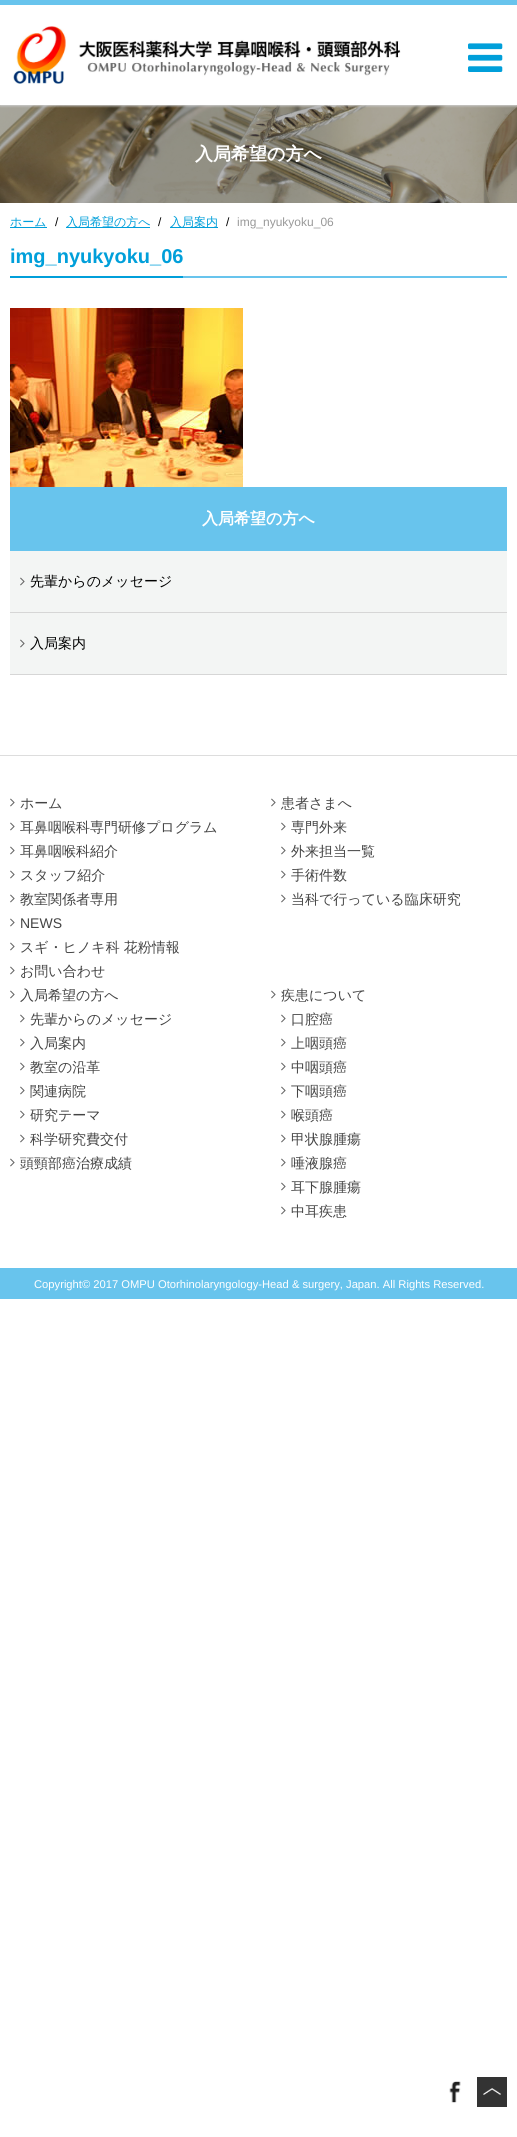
#include <cairo.h>
#include <math.h>
#include <stddef.h>


static void ink(cairo_t *ctx, unsigned color) {
    cairo_set_source_rgb(ctx, (color >> 16) / 255.0, (color >> 8 & 255) / 255.0, (color & 255) / 255.0);
}

static void round_path(cairo_t *ctx, double x, double y, double w, double h, double r) {
    cairo_new_sub_path(ctx);
    cairo_arc(ctx, x + w - r, y + h - r, r, 0, M_PI / 2);
    cairo_arc(ctx, x + r, y + h - r, r, M_PI / 2, M_PI);
    cairo_arc(ctx, x + r, y + r, r, M_PI, 1.5 * M_PI);
    cairo_arc(ctx, x + w - r, y + r, r, 1.5 * M_PI, 2 * M_PI);
    cairo_close_path(ctx);
}

static void blur_box(cairo_t *ctx, double x, double y, double w, double h, double r, double blur, double alpha) {
    cairo_push_group_with_content(ctx, CAIRO_CONTENT_ALPHA);
    cairo_set_operator(ctx, CAIRO_OPERATOR_SOURCE);
    for (int i = 15; i >= -15 && fmin(w, h) + blur * i / 3 > 0; i -= 2) {
        double e = blur * i / 6;
        cairo_set_source_rgba(ctx, 0, 0, 0, alpha * erfc((i - 1) / 8.5) / 2);
        round_path(ctx, x - e, y - e, w + 2 * e, h + 2 * e, fmax(0, fmin(r + e + blur * .6, fmin(w, h) / 2 + e)));
        cairo_fill(ctx);
    }
    cairo_pattern_t *soft = cairo_pop_group(ctx);
    cairo_mask(ctx, soft);
    cairo_pattern_destroy(soft);
}

static void paste(cairo_t *ctx, const char *path, double x, double y, double w, double h) {
    cairo_surface_t *image = cairo_image_surface_create_from_png(path);
    cairo_save(ctx);
    cairo_set_source_surface(ctx, image, x, y);
    cairo_rectangle(ctx, x, y, w, h);
    cairo_fill(ctx);
    cairo_restore(ctx);
    cairo_surface_destroy(image);
}

int main(void) {
    cairo_surface_t *surface = cairo_image_surface_create(CAIRO_FORMAT_RGB24, 517, 2137);
    cairo_t *ctx = cairo_create(surface);
    cairo_font_options_t *options = cairo_font_options_create();
    cairo_font_options_set_hint_metrics(options, CAIRO_HINT_METRICS_OFF);
    cairo_font_options_set_hint_style(options, CAIRO_HINT_STYLE_NONE);
    cairo_set_font_options(ctx, options);
    cairo_set_miter_limit(ctx, 4);
    ink(ctx, 0xFFFFFF);
    cairo_paint(ctx);
    paste(ctx, "media/3.png", 0, 105, 517, 98);
    cairo_save(ctx);
    cairo_rectangle(ctx, 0, 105, 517, 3);
    cairo_clip(ctx);
    ink(ctx, 0xCCCCCC);
    blur_box(ctx, 0, 1, 517, 105, 0, 1, 1);
    cairo_restore(ctx);
    ink(ctx, 0x68C4ED);
    cairo_rectangle(ctx, 0, 0, 517, 5);
    cairo_fill(ctx);
    paste(ctx, "media/1.png", 13, 26, 388, 58);
    paste(ctx, "media/2.png", 468, 43, 35, 29);
    cairo_select_font_face(ctx, "WenQuanYi Zen Hei", CAIRO_FONT_SLANT_NORMAL, CAIRO_FONT_WEIGHT_BOLD);
    cairo_set_font_size(ctx, 18);
    ink(ctx, 0xFFFFFF);
    cairo_move_to(ctx, 195, 160);
    cairo_show_text(ctx, "入局希望の方へ");
    ink(ctx, 0x009FDA);
    cairo_rectangle(ctx, 10, 227, 37, 1);
    cairo_fill(ctx);
    cairo_select_font_face(ctx, "WenQuanYi Zen Hei Medium", CAIRO_FONT_SLANT_NORMAL, CAIRO_FONT_WEIGHT_NORMAL);
    cairo_set_font_size(ctx, 12);
    cairo_move_to(ctx, 10, 226);
    cairo_show_text(ctx, "ホーム");
    cairo_select_font_face(ctx, "Liberation Sans", CAIRO_FONT_SLANT_NORMAL, CAIRO_FONT_WEIGHT_NORMAL);
    ink(ctx, 0x000000);
    cairo_move_to(ctx, 55, 226);
    cairo_show_text(ctx, "/");
    ink(ctx, 0x009FDA);
    cairo_rectangle(ctx, 66, 227, 84, 1);
    cairo_fill(ctx);
    cairo_select_font_face(ctx, "WenQuanYi Zen Hei Medium", CAIRO_FONT_SLANT_NORMAL, CAIRO_FONT_WEIGHT_NORMAL);
    cairo_move_to(ctx, 66, 226);
    cairo_show_text(ctx, "入局希望の方へ");
    cairo_select_font_face(ctx, "Liberation Sans", CAIRO_FONT_SLANT_NORMAL, CAIRO_FONT_WEIGHT_NORMAL);
    ink(ctx, 0x000000);
    cairo_move_to(ctx, 158, 226);
    cairo_show_text(ctx, "/");
    ink(ctx, 0x009FDA);
    cairo_rectangle(ctx, 170, 227, 48, 1);
    cairo_fill(ctx);
    cairo_select_font_face(ctx, "WenQuanYi Zen Hei Medium", CAIRO_FONT_SLANT_NORMAL, CAIRO_FONT_WEIGHT_NORMAL);
    cairo_move_to(ctx, 170, 226);
    cairo_show_text(ctx, "入局案内");
    cairo_select_font_face(ctx, "Liberation Sans", CAIRO_FONT_SLANT_NORMAL, CAIRO_FONT_WEIGHT_NORMAL);
    ink(ctx, 0x000000);
    cairo_move_to(ctx, 226, 226);
    cairo_show_text(ctx, "/");
    ink(ctx, 0x999999);
    cairo_move_to(ctx, 237, 226);
    cairo_show_text(ctx, "img_nyukyoku_06");
    ink(ctx, 0x68C4ED);
    cairo_rectangle(ctx, 183, 276, 324, 2);
    cairo_fill(ctx);
    cairo_select_font_face(ctx, "Liberation Sans", CAIRO_FONT_SLANT_NORMAL, CAIRO_FONT_WEIGHT_BOLD);
    cairo_set_font_size(ctx, 20);
    ink(ctx, 0x009FDA);
    cairo_move_to(ctx, 10, 263);
    cairo_show_text(ctx, "img_nyukyoku_06");
    cairo_rectangle(ctx, 10, 276, 173, 2);
    cairo_fill(ctx);
    paste(ctx, "media/4.png", 10, 308, 233, 179);
    ink(ctx, 0xF3F5F4);
    cairo_rectangle(ctx, 10, 551, 497, 123);
    cairo_fill(ctx);
    ink(ctx, 0x68C4ED);
    cairo_rectangle(ctx, 10, 487, 497, 64);
    cairo_fill(ctx);
    cairo_select_font_face(ctx, "WenQuanYi Zen Hei", CAIRO_FONT_SLANT_NORMAL, CAIRO_FONT_WEIGHT_BOLD);
    cairo_set_font_size(ctx, 16);
    ink(ctx, 0xFFFFFF);
    cairo_move_to(ctx, 202, 524);
    cairo_show_text(ctx, "入局希望の方へ");
    ink(ctx, 0xD6D6D6);
    cairo_rectangle(ctx, 10, 612, 497, 1);
    cairo_fill(ctx);
    paste(ctx, "media/5.png", 20, 577, 5, 9);
    cairo_select_font_face(ctx, "WenQuanYi Zen Hei Medium", CAIRO_FONT_SLANT_NORMAL, CAIRO_FONT_WEIGHT_NORMAL);
    cairo_set_font_size(ctx, 14);
    ink(ctx, 0x000000);
    cairo_move_to(ctx, 30, 586);
    cairo_show_text(ctx, "先輩からのメッセージ");
    ink(ctx, 0xD6D6D6);
    cairo_rectangle(ctx, 10, 674, 497, 1);
    cairo_fill(ctx);
    paste(ctx, "media/5.png", 20, 639, 5, 9);
    ink(ctx, 0x000000);
    cairo_move_to(ctx, 30, 648);
    cairo_show_text(ctx, "入局案内");
    ink(ctx, 0xDDDDDD);
    cairo_rectangle(ctx, 0, 755, 517, 1);
    cairo_fill(ctx);
    paste(ctx, "media/6.png", 10, 798, 5, 9);
    ink(ctx, 0x444444);
    cairo_move_to(ctx, 20, 808);
    cairo_show_text(ctx, "ホーム");
    paste(ctx, "media/6.png", 10, 822, 5, 9);
    cairo_move_to(ctx, 20, 832);
    cairo_show_text(ctx, "耳鼻咽喉科専門研修プログラム");
    paste(ctx, "media/6.png", 10, 846, 5, 9);
    cairo_move_to(ctx, 20, 856);
    cairo_show_text(ctx, "耳鼻咽喉科紹介");
    paste(ctx, "media/6.png", 10, 870, 5, 9);
    cairo_move_to(ctx, 20, 880);
    cairo_show_text(ctx, "スタッフ紹介");
    paste(ctx, "media/6.png", 10, 894, 5, 9);
    cairo_move_to(ctx, 20, 904);
    cairo_show_text(ctx, "教室関係者専用");
    paste(ctx, "media/6.png", 10, 918, 5, 9);
    cairo_select_font_face(ctx, "Liberation Sans", CAIRO_FONT_SLANT_NORMAL, CAIRO_FONT_WEIGHT_NORMAL);
    cairo_move_to(ctx, 20, 928);
    cairo_show_text(ctx, "NEWS");
    paste(ctx, "media/6.png", 10, 942, 5, 9);
    cairo_select_font_face(ctx, "WenQuanYi Zen Hei Medium", CAIRO_FONT_SLANT_NORMAL, CAIRO_FONT_WEIGHT_NORMAL);
    cairo_move_to(ctx, 20, 952);
    cairo_show_text(ctx, "スギ・ヒノキ科 花粉情報");
    paste(ctx, "media/6.png", 10, 966, 5, 9);
    cairo_move_to(ctx, 20, 976);
    cairo_show_text(ctx, "お問い合わせ");
    paste(ctx, "media/6.png", 271, 798, 5, 9);
    cairo_move_to(ctx, 281, 808);
    cairo_show_text(ctx, "患者さまへ");
    paste(ctx, "media/6.png", 281, 822, 5, 9);
    cairo_move_to(ctx, 291, 832);
    cairo_show_text(ctx, "専門外来");
    paste(ctx, "media/6.png", 281, 846, 5, 9);
    cairo_move_to(ctx, 291, 856);
    cairo_show_text(ctx, "外来担当一覧");
    paste(ctx, "media/6.png", 281, 870, 5, 9);
    cairo_move_to(ctx, 291, 880);
    cairo_show_text(ctx, "手術件数");
    paste(ctx, "media/6.png", 281, 894, 5, 9);
    cairo_move_to(ctx, 291, 904);
    cairo_show_text(ctx, "当科で行っている臨床研究");
    paste(ctx, "media/6.png", 10, 990, 5, 9);
    cairo_move_to(ctx, 20, 1000);
    cairo_show_text(ctx, "入局希望の方へ");
    paste(ctx, "media/6.png", 20, 1014, 5, 9);
    cairo_move_to(ctx, 30, 1024);
    cairo_show_text(ctx, "先輩からのメッセージ");
    paste(ctx, "media/6.png", 20, 1038, 5, 9);
    cairo_move_to(ctx, 30, 1048);
    cairo_show_text(ctx, "入局案内");
    paste(ctx, "media/6.png", 20, 1062, 5, 9);
    cairo_move_to(ctx, 30, 1072);
    cairo_show_text(ctx, "教室の沿革");
    paste(ctx, "media/6.png", 20, 1086, 5, 9);
    cairo_move_to(ctx, 30, 1096);
    cairo_show_text(ctx, "関連病院");
    paste(ctx, "media/6.png", 20, 1110, 5, 9);
    cairo_move_to(ctx, 30, 1120);
    cairo_show_text(ctx, "研究テーマ");
    paste(ctx, "media/6.png", 20, 1134, 5, 9);
    cairo_move_to(ctx, 30, 1144);
    cairo_show_text(ctx, "科学研究費交付");
    paste(ctx, "media/6.png", 10, 1158, 5, 9);
    cairo_move_to(ctx, 20, 1168);
    cairo_show_text(ctx, "頭頸部癌治療成績");
    paste(ctx, "media/6.png", 271, 990, 5, 9);
    cairo_move_to(ctx, 281, 1000);
    cairo_show_text(ctx, "疾患について");
    paste(ctx, "media/6.png", 281, 1014, 5, 9);
    cairo_move_to(ctx, 291, 1024);
    cairo_show_text(ctx, "口腔癌");
    paste(ctx, "media/6.png", 281, 1038, 5, 9);
    cairo_move_to(ctx, 291, 1048);
    cairo_show_text(ctx, "上咽頭癌");
    paste(ctx, "media/6.png", 281, 1062, 5, 9);
    cairo_move_to(ctx, 291, 1072);
    cairo_show_text(ctx, "中咽頭癌");
    paste(ctx, "media/6.png", 281, 1086, 5, 9);
    cairo_move_to(ctx, 291, 1096);
    cairo_show_text(ctx, "下咽頭癌");
    paste(ctx, "media/6.png", 281, 1110, 5, 9);
    cairo_move_to(ctx, 291, 1120);
    cairo_show_text(ctx, "喉頭癌");
    paste(ctx, "media/6.png", 281, 1134, 5, 9);
    cairo_move_to(ctx, 291, 1144);
    cairo_show_text(ctx, "甲状腺腫瘍");
    paste(ctx, "media/6.png", 281, 1158, 5, 9);
    cairo_move_to(ctx, 291, 1168);
    cairo_show_text(ctx, "唾液腺癌");
    paste(ctx, "media/6.png", 281, 1182, 5, 9);
    cairo_move_to(ctx, 291, 1192);
    cairo_show_text(ctx, "耳下腺腫瘍");
    paste(ctx, "media/6.png", 281, 1206, 5, 9);
    cairo_move_to(ctx, 291, 1216);
    cairo_show_text(ctx, "中耳疾患");
    ink(ctx, 0x68C4ED);
    cairo_rectangle(ctx, 0, 1268, 517, 31);
    cairo_fill(ctx);
    cairo_select_font_face(ctx, "Liberation Sans", CAIRO_FONT_SLANT_NORMAL, CAIRO_FONT_WEIGHT_NORMAL);
    cairo_set_font_size(ctx, 11.2);
    ink(ctx, 0xFFFFFF);
    cairo_move_to(ctx, 34, 1288);
    cairo_show_text(ctx, "Copyright© 2017 OMPU Otorhinolaryngology-Head & surgery, Japan. All Rights Reserved.");
    paste(ctx, "media/7.png", 449, 2081, 12, 22);
    ink(ctx, 0x333333);
    cairo_rectangle(ctx, 477, 2077, 30, 30);
    cairo_fill(ctx);
    paste(ctx, "media/8.png", 483, 2088, 18, 7);
    cairo_surface_write_to_png(surface, "image.png");
    cairo_font_options_destroy(options);
    cairo_destroy(ctx);
    cairo_surface_destroy(surface);
    return 0;
}
